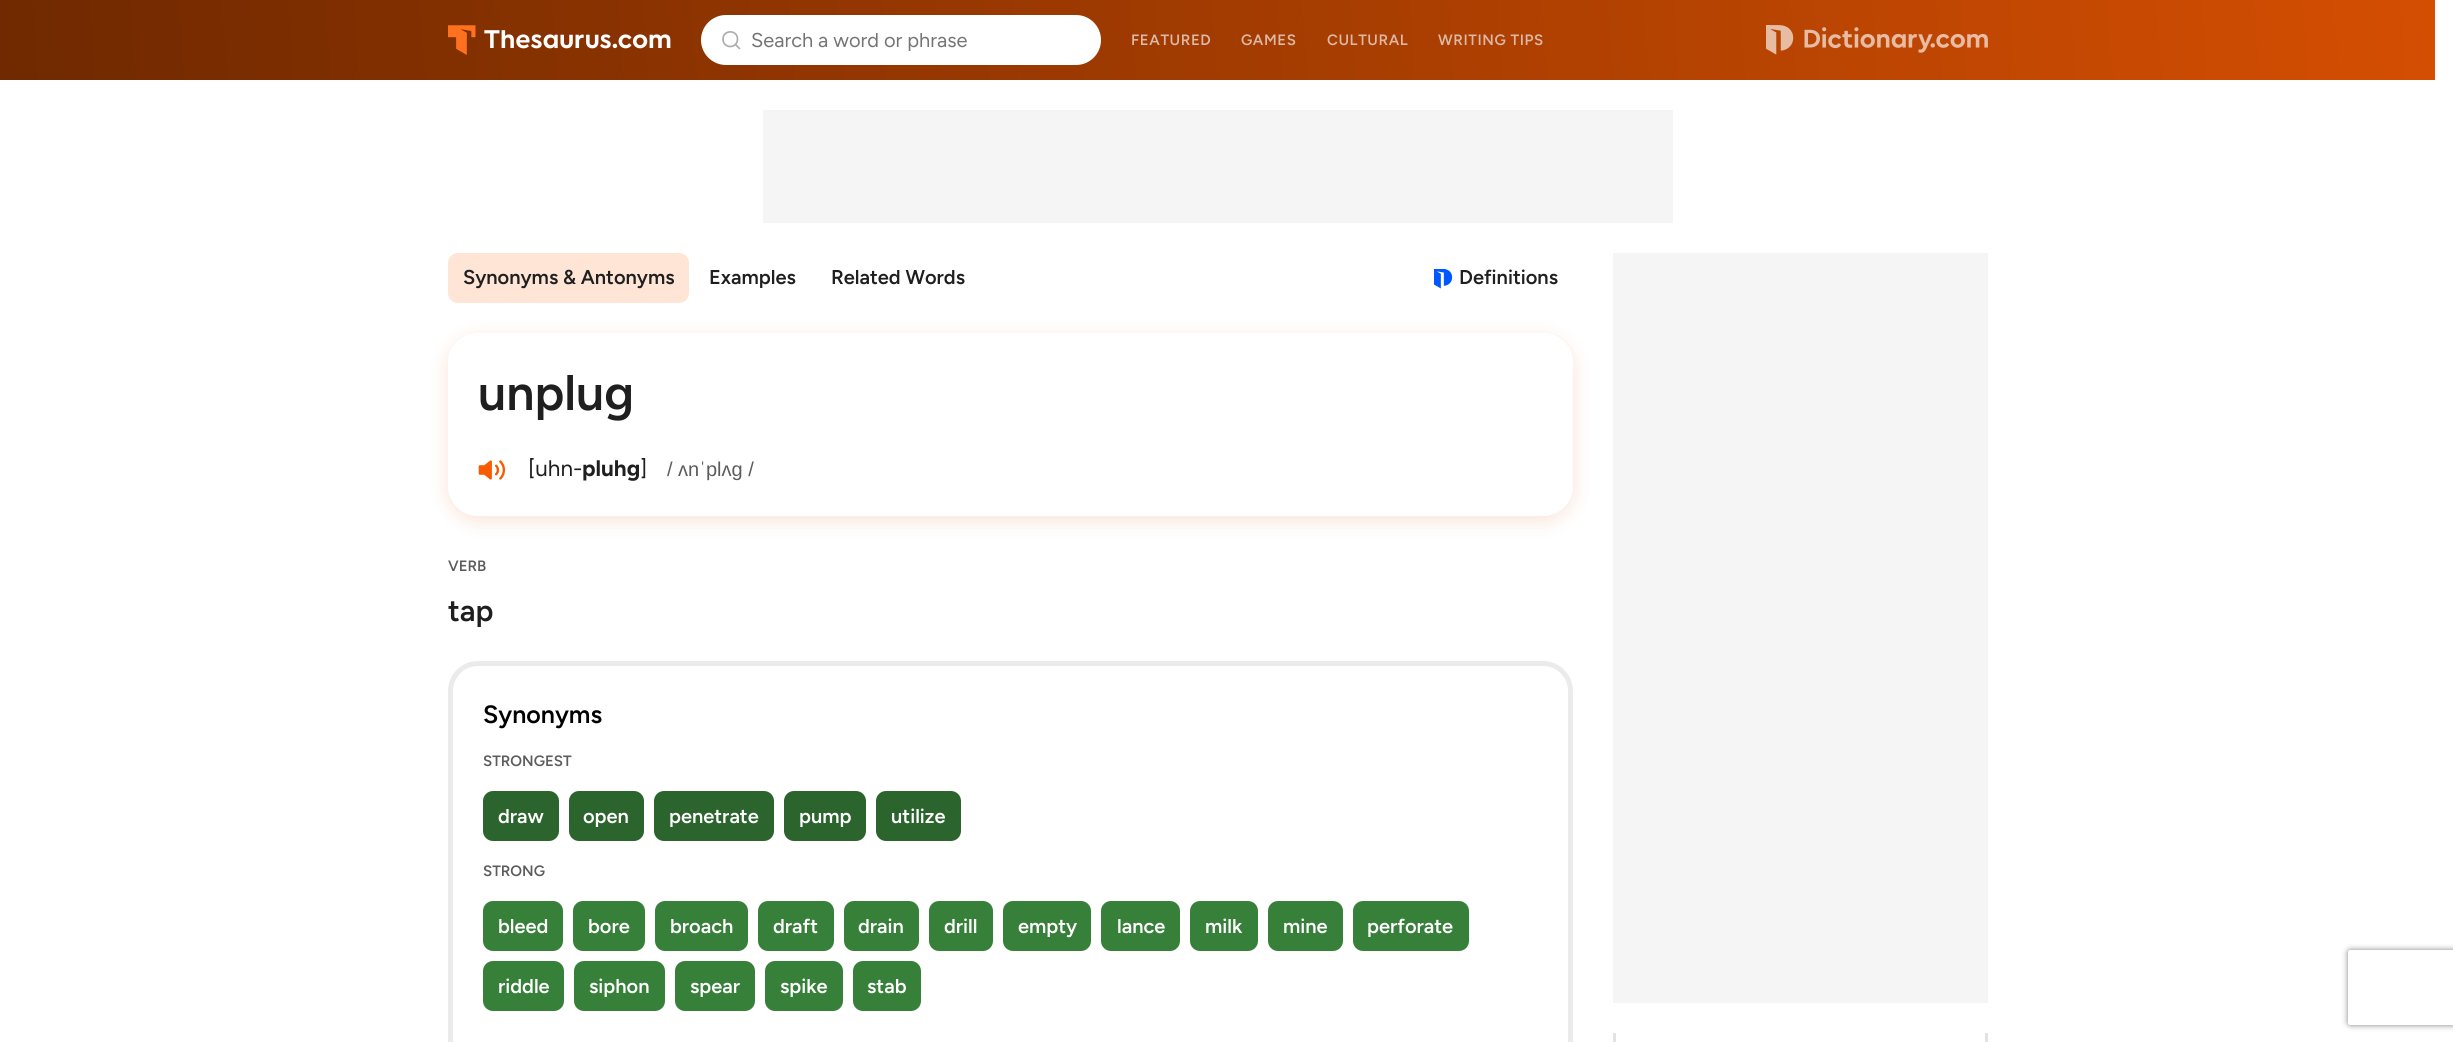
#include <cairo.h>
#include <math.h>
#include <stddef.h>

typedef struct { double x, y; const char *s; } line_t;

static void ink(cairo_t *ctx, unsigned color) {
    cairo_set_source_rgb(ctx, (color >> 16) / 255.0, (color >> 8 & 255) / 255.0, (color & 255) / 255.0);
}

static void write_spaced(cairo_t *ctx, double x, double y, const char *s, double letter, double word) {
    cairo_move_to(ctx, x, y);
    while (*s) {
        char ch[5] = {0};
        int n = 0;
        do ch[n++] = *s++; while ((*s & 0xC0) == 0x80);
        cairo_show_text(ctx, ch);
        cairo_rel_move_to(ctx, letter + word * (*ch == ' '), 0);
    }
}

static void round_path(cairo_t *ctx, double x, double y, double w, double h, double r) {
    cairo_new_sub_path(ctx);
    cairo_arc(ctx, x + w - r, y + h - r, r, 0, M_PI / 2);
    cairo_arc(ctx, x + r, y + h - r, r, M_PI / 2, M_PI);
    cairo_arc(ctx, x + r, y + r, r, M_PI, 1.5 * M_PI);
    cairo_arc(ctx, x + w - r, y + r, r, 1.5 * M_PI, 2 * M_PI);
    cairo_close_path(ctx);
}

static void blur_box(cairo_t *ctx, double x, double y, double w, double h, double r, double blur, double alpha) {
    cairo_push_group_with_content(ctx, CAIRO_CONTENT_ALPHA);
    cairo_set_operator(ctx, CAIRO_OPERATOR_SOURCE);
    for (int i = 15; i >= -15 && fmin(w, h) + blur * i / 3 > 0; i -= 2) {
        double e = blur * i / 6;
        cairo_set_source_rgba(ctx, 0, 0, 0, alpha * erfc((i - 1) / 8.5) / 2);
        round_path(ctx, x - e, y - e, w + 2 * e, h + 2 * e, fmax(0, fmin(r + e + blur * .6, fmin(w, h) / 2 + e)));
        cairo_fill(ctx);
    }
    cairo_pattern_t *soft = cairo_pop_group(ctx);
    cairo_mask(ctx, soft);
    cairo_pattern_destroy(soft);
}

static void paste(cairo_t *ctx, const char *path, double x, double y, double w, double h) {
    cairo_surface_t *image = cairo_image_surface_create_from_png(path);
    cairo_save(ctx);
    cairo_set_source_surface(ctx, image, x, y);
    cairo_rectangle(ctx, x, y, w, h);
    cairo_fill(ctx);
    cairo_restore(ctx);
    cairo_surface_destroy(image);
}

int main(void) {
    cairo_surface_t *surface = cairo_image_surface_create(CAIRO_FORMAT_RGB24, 2453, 1042);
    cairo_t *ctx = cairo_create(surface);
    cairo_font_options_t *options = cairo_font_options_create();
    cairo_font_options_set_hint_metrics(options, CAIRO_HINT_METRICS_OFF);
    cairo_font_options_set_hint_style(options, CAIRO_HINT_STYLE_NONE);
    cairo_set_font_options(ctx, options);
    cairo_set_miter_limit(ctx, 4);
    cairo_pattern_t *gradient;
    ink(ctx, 0xFFFFFF);
    cairo_paint(ctx);
    gradient = cairo_pattern_create_linear(3.6, 129, 2431, -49);
    cairo_pattern_add_color_stop_rgba(gradient, 0, 0.439, 0.161, 0, 1);
    cairo_pattern_add_color_stop_rgba(gradient, 1, 0.831, 0.306, 0.008, 1);
    cairo_set_source(ctx, gradient);
    cairo_pattern_destroy(gradient);
    cairo_rectangle(ctx, 0, 0, 2435, 80);
    cairo_fill(ctx);
    paste(ctx, "media/1.png", 448, 25, 223, 30);
    ink(ctx, 0xFFFFFF);
    round_path(ctx, 701, 15, 400, 50, 25);
    cairo_fill(ctx);
    cairo_new_path(ctx);
    cairo_move_to(ctx, 739.5, 48.5);
    cairo_line_to(ctx, 735.5, 44.5);
    cairo_move_to(ctx, 737.5, 39);
    cairo_curve_to(ctx, 737.5, 49, 723, 49, 723, 39);
    cairo_curve_to(ctx, 723, 29.5, 737.5, 29.5, 737.5, 39);
    cairo_close_path(ctx);
    ink(ctx, 0xADADAD);
    cairo_set_line_width(ctx, 1.7);
    cairo_set_line_cap(ctx, CAIRO_LINE_CAP_ROUND);
    cairo_set_line_join(ctx, CAIRO_LINE_JOIN_ROUND);
    cairo_stroke(ctx);
    cairo_select_font_face(ctx, "Figtree", CAIRO_FONT_SLANT_NORMAL, CAIRO_FONT_WEIGHT_NORMAL);
    cairo_set_font_size(ctx, 20);
    ink(ctx, 0x757575);
    cairo_move_to(ctx, 751, 47);
    cairo_show_text(ctx, "Search a word or phrase");
    cairo_select_font_face(ctx, "Figtree SemiBold", CAIRO_FONT_SLANT_NORMAL, CAIRO_FONT_WEIGHT_NORMAL);
    cairo_set_font_size(ctx, 15);
    ink(ctx, 0xDDB8A4);
    {
        static const line_t items[] = {
            {1131, 45, "FEATURED"},
            {1241, 45, "GAMES"},
            {1327, 45, "CULTURAL"},
            {1438, 45, "WRITING TIPS"},
        };
        for (size_t i = 0; i < sizeof items / sizeof *items; i++) {
            write_spaced(ctx, items[i].x, items[i].y, items[i].s, 0.6, 0);
        }
    }
    paste(ctx, "media/2.png", 1766, 25, 222, 30);
    ink(ctx, 0xF5F5F5);
    cairo_rectangle(ctx, 763, 110, 910, 113);
    cairo_fill(ctx);
    ink(ctx, 0xFFE5D6);
    round_path(ctx, 448, 253, 241, 50, 10);
    cairo_fill(ctx);
    cairo_set_font_size(ctx, 20);
    ink(ctx, 0x1F1F1F);
    {
        static const line_t items[] = {
            {463, 284, "Synonyms & Antonyms"},
            {709, 284, "Examples"},
            {831, 284, "Related Words"},
        };
        for (size_t i = 0; i < sizeof items / sizeof *items; i++) {
            cairo_move_to(ctx, items[i].x, items[i].y);
            cairo_show_text(ctx, items[i].s);
        }
    }
    paste(ctx, "media/3.png", 1434, 269, 19, 20);
    cairo_move_to(ctx, 1459, 284);
    cairo_show_text(ctx, "Definitions");
    cairo_save(ctx);
    cairo_set_fill_rule(ctx, CAIRO_FILL_RULE_EVEN_ODD);
    cairo_new_path(ctx);
    cairo_move_to(ctx, 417, 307);
    cairo_line_to(ctx, 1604, 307);
    cairo_line_to(ctx, 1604, 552);
    cairo_line_to(ctx, 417, 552);
    cairo_close_path(ctx);
    cairo_move_to(ctx, 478, 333);
    cairo_line_to(ctx, 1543, 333);
    cairo_curve_to(ctx, 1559.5, 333, 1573, 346.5, 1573, 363);
    cairo_line_to(ctx, 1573, 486);
    cairo_curve_to(ctx, 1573, 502.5, 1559.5, 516, 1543, 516);
    cairo_line_to(ctx, 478, 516);
    cairo_curve_to(ctx, 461.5, 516, 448, 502.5, 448, 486);
    cairo_line_to(ctx, 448, 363);
    cairo_curve_to(ctx, 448, 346.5, 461.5, 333, 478, 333);
    cairo_close_path(ctx);
    cairo_clip(ctx);
    ink(ctx, 0xD44E02);
    blur_box(ctx, 448, 338, 1125, 183, 30, 10, 0.16);
    cairo_restore(ctx);
    cairo_set_font_size(ctx, 50);
    cairo_move_to(ctx, 478, 410);
    cairo_show_text(ctx, "unplug");
    paste(ctx, "media/4.png", 478, 460, 28, 20);
    cairo_select_font_face(ctx, "Figtree", CAIRO_FONT_SLANT_NORMAL, CAIRO_FONT_WEIGHT_NORMAL);
    cairo_set_font_size(ctx, 22.5);
    cairo_move_to(ctx, 528, 476);
    cairo_show_text(ctx, "[uhn-");
    cairo_select_font_face(ctx, "Figtree", CAIRO_FONT_SLANT_NORMAL, CAIRO_FONT_WEIGHT_BOLD);
    cairo_move_to(ctx, 582, 476);
    cairo_show_text(ctx, "pluhg");
    cairo_select_font_face(ctx, "Figtree", CAIRO_FONT_SLANT_NORMAL, CAIRO_FONT_WEIGHT_NORMAL);
    cairo_move_to(ctx, 640, 476);
    cairo_show_text(ctx, "]");
    cairo_select_font_face(ctx, "Liberation Sans", CAIRO_FONT_SLANT_NORMAL, CAIRO_FONT_WEIGHT_NORMAL);
    cairo_set_font_size(ctx, 20);
    ink(ctx, 0x5C5C5C);
    cairo_move_to(ctx, 667, 476);
    cairo_show_text(ctx, "/ ʌnˈplʌg /");
    cairo_select_font_face(ctx, "Figtree SemiBold", CAIRO_FONT_SLANT_NORMAL, CAIRO_FONT_WEIGHT_NORMAL);
    cairo_set_font_size(ctx, 15);
    cairo_move_to(ctx, 448, 571);
    cairo_show_text(ctx, "VERB");
    cairo_set_font_size(ctx, 30);
    ink(ctx, 0x1F1F1F);
    cairo_move_to(ctx, 448, 621);
    cairo_show_text(ctx, "tap");
    round_path(ctx, 450.5, 663.5, 1120, 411, 27.5);
    ink(ctx, 0xEBEBEB);
    cairo_set_line_width(ctx, 5);
    cairo_set_line_cap(ctx, CAIRO_LINE_CAP_BUTT);
    cairo_set_line_join(ctx, CAIRO_LINE_JOIN_MITER);
    cairo_stroke(ctx);
    cairo_set_font_size(ctx, 25);
    ink(ctx, 0x000000);
    cairo_move_to(ctx, 483, 723);
    cairo_show_text(ctx, "Synonyms");
    cairo_set_font_size(ctx, 15);
    ink(ctx, 0x5C5C5C);
    cairo_move_to(ctx, 483, 766);
    cairo_show_text(ctx, "STRONGEST");
    ink(ctx, 0x2B642D);
    round_path(ctx, 483, 791, 76, 50, 10);
    cairo_fill(ctx);
    cairo_set_font_size(ctx, 20);
    ink(ctx, 0xFFFFFF);
    cairo_move_to(ctx, 498, 823);
    cairo_show_text(ctx, "draw");
    ink(ctx, 0x2B642D);
    round_path(ctx, 569, 791, 75, 50, 10);
    cairo_fill(ctx);
    ink(ctx, 0xFFFFFF);
    cairo_move_to(ctx, 583, 823);
    cairo_show_text(ctx, "open");
    ink(ctx, 0x2B642D);
    round_path(ctx, 654, 791, 120, 50, 10);
    cairo_fill(ctx);
    ink(ctx, 0xFFFFFF);
    cairo_move_to(ctx, 669, 823);
    cairo_show_text(ctx, "penetrate");
    ink(ctx, 0x2B642D);
    round_path(ctx, 784, 791, 82, 50, 10);
    cairo_fill(ctx);
    ink(ctx, 0xFFFFFF);
    cairo_move_to(ctx, 799, 823);
    cairo_show_text(ctx, "pump");
    ink(ctx, 0x2B642D);
    round_path(ctx, 876, 791, 85, 50, 10);
    cairo_fill(ctx);
    ink(ctx, 0xFFFFFF);
    cairo_move_to(ctx, 891, 823);
    cairo_show_text(ctx, "utilize");
    cairo_set_font_size(ctx, 15);
    ink(ctx, 0x5C5C5C);
    cairo_move_to(ctx, 483, 876);
    cairo_show_text(ctx, "STRONG");
    ink(ctx, 0x37803A);
    round_path(ctx, 483, 901, 80, 50, 10);
    cairo_fill(ctx);
    cairo_set_font_size(ctx, 20);
    ink(ctx, 0xFFFFFF);
    cairo_move_to(ctx, 498, 933);
    cairo_show_text(ctx, "bleed");
    ink(ctx, 0x37803A);
    round_path(ctx, 573, 901, 72, 50, 10);
    cairo_fill(ctx);
    ink(ctx, 0xFFFFFF);
    cairo_move_to(ctx, 588, 933);
    cairo_show_text(ctx, "bore");
    ink(ctx, 0x37803A);
    round_path(ctx, 655, 901, 93, 50, 10);
    cairo_fill(ctx);
    ink(ctx, 0xFFFFFF);
    cairo_move_to(ctx, 670, 933);
    cairo_show_text(ctx, "broach");
    ink(ctx, 0x37803A);
    round_path(ctx, 758, 901, 76, 50, 10);
    cairo_fill(ctx);
    ink(ctx, 0xFFFFFF);
    cairo_move_to(ctx, 773, 933);
    cairo_show_text(ctx, "draft");
    ink(ctx, 0x37803A);
    round_path(ctx, 844, 901, 75, 50, 10);
    cairo_fill(ctx);
    ink(ctx, 0xFFFFFF);
    cairo_move_to(ctx, 858, 933);
    cairo_show_text(ctx, "drain");
    ink(ctx, 0x37803A);
    round_path(ctx, 929, 901, 64, 50, 10);
    cairo_fill(ctx);
    ink(ctx, 0xFFFFFF);
    cairo_move_to(ctx, 944, 933);
    cairo_show_text(ctx, "drill");
    ink(ctx, 0x37803A);
    round_path(ctx, 1003, 901, 88, 50, 10);
    cairo_fill(ctx);
    ink(ctx, 0xFFFFFF);
    cairo_move_to(ctx, 1018, 933);
    cairo_show_text(ctx, "empty");
    ink(ctx, 0x37803A);
    round_path(ctx, 1101, 901, 79, 50, 10);
    cairo_fill(ctx);
    ink(ctx, 0xFFFFFF);
    cairo_move_to(ctx, 1117, 933);
    cairo_show_text(ctx, "lance");
    ink(ctx, 0x37803A);
    round_path(ctx, 1190, 901, 68, 50, 10);
    cairo_fill(ctx);
    ink(ctx, 0xFFFFFF);
    cairo_move_to(ctx, 1205, 933);
    cairo_show_text(ctx, "milk");
    ink(ctx, 0x37803A);
    round_path(ctx, 1268, 901, 75, 50, 10);
    cairo_fill(ctx);
    ink(ctx, 0xFFFFFF);
    cairo_move_to(ctx, 1283, 933);
    cairo_show_text(ctx, "mine");
    ink(ctx, 0x37803A);
    round_path(ctx, 1353, 901, 116, 50, 10);
    cairo_fill(ctx);
    ink(ctx, 0xFFFFFF);
    cairo_move_to(ctx, 1367, 933);
    cairo_show_text(ctx, "perforate");
    ink(ctx, 0x37803A);
    round_path(ctx, 483, 961, 81, 50, 10);
    cairo_fill(ctx);
    ink(ctx, 0xFFFFFF);
    cairo_move_to(ctx, 498, 993);
    cairo_show_text(ctx, "riddle");
    ink(ctx, 0x37803A);
    round_path(ctx, 574, 961, 91, 50, 10);
    cairo_fill(ctx);
    ink(ctx, 0xFFFFFF);
    cairo_move_to(ctx, 589, 993);
    cairo_show_text(ctx, "siphon");
    ink(ctx, 0x37803A);
    round_path(ctx, 675, 961, 80, 50, 10);
    cairo_fill(ctx);
    ink(ctx, 0xFFFFFF);
    cairo_move_to(ctx, 690, 993);
    cairo_show_text(ctx, "spear");
    ink(ctx, 0x37803A);
    round_path(ctx, 765, 961, 78, 50, 10);
    cairo_fill(ctx);
    ink(ctx, 0xFFFFFF);
    cairo_move_to(ctx, 780, 993);
    cairo_show_text(ctx, "spike");
    ink(ctx, 0x37803A);
    round_path(ctx, 853, 961, 68, 50, 10);
    cairo_fill(ctx);
    ink(ctx, 0xFFFFFF);
    cairo_move_to(ctx, 867, 993);
    cairo_show_text(ctx, "stab");
    ink(ctx, 0xF5F5F5);
    cairo_rectangle(ctx, 1613, 253, 375, 750);
    cairo_fill(ctx);
    cairo_save(ctx);
    cairo_rectangle(ctx, 1613, 1033, 375, 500);
    cairo_clip(ctx);
    round_path(ctx, 1614.5, 909.5, 372, 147, 11.5);
    ink(ctx, 0xE3E3E3);
    cairo_set_line_width(ctx, 3);
    cairo_stroke(ctx);
    cairo_restore(ctx);
    cairo_save(ctx);
    cairo_set_fill_rule(ctx, CAIRO_FILL_RULE_EVEN_ODD);
    cairo_new_path(ctx);
    cairo_move_to(ctx, 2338, 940);
    cairo_line_to(ctx, 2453, 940);
    cairo_line_to(ctx, 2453, 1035);
    cairo_line_to(ctx, 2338, 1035);
    cairo_close_path(ctx);
    cairo_move_to(ctx, 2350.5, 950);
    cairo_line_to(ctx, 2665.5, 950);
    cairo_curve_to(ctx, 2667, 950, 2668, 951, 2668, 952.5);
    cairo_line_to(ctx, 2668, 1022.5);
    cairo_curve_to(ctx, 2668, 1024, 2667, 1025, 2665.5, 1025);
    cairo_line_to(ctx, 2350.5, 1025);
    cairo_curve_to(ctx, 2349, 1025, 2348, 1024, 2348, 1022.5);
    cairo_line_to(ctx, 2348, 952.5);
    cairo_curve_to(ctx, 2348, 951, 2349, 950, 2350.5, 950);
    cairo_close_path(ctx);
    cairo_clip(ctx);
    ink(ctx, 0x808080);
    blur_box(ctx, 2348, 950, 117, 75, 2.5, 3, 1);
    cairo_restore(ctx);
    cairo_surface_write_to_png(surface, "image.png");
    cairo_font_options_destroy(options);
    cairo_destroy(ctx);
    cairo_surface_destroy(surface);
    return 0;
}
